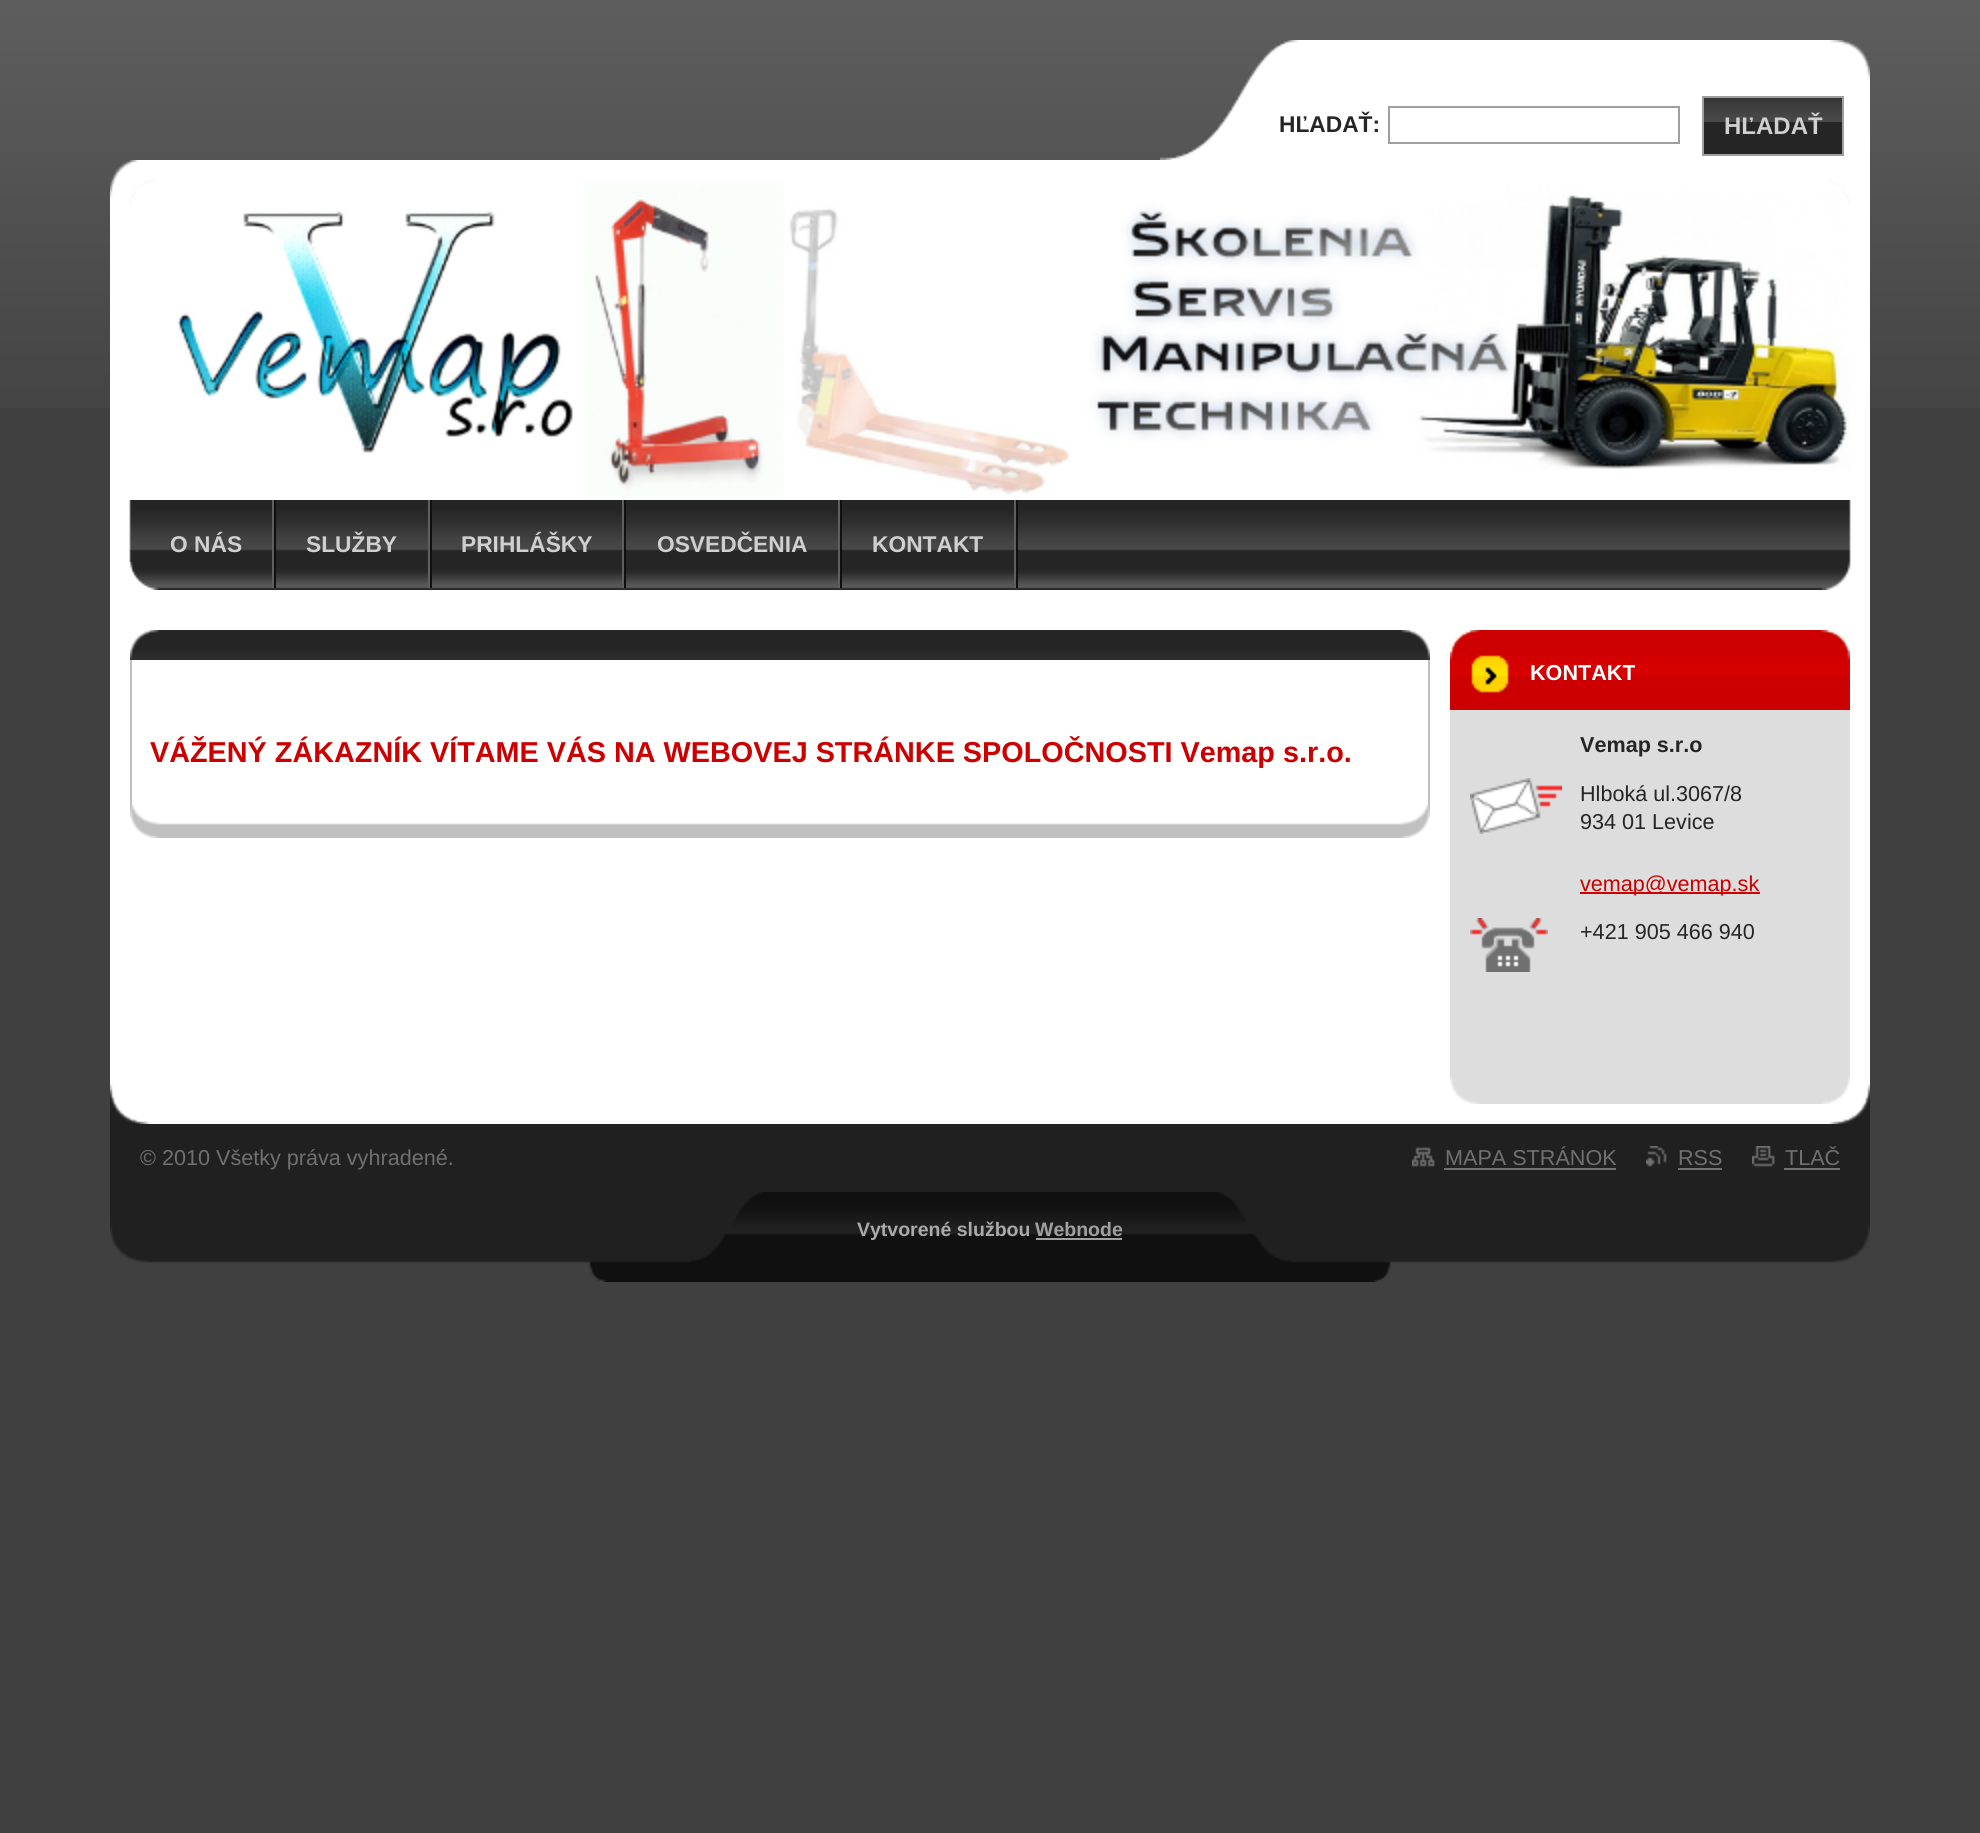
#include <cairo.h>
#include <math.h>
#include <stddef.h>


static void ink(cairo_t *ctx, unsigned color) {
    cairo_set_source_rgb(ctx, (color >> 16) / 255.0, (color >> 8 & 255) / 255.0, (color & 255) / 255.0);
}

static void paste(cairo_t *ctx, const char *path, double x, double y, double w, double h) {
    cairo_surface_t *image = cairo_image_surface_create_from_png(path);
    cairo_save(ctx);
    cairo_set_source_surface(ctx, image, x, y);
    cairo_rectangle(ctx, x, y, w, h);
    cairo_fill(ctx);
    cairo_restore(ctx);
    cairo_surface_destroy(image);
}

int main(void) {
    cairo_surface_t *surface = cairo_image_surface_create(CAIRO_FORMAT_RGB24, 1980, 1833);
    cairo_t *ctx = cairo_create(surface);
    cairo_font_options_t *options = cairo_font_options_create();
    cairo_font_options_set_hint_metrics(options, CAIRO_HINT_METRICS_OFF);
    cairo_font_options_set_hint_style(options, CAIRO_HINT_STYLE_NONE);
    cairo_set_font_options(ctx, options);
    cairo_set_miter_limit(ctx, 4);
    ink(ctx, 0x404040);
    cairo_paint(ctx);
    paste(ctx, "media/1.png", 0, 0, 1980, 408);
    paste(ctx, "media/2.png", 1160, 40, 710, 120);
    cairo_select_font_face(ctx, "Liberation Sans", CAIRO_FONT_SLANT_NORMAL, CAIRO_FONT_WEIGHT_BOLD);
    cairo_set_font_size(ctx, 22.75);
    ink(ctx, 0x252525);
    cairo_move_to(ctx, 1279, 132);
    cairo_show_text(ctx, "HĽADAŤ:");
    cairo_rectangle(ctx, 1389, 107, 290, 36);
    ink(ctx, 0x9F9F9F);
    cairo_stroke(ctx);
    ink(ctx, 0x252525);
    cairo_rectangle(ctx, 1704, 122, 138, 32);
    cairo_fill(ctx);
    paste(ctx, "media/3.png", 1704, 98, 138, 24);
    cairo_rectangle(ctx, 1703, 97, 140, 58);
    ink(ctx, 0x9F9F9F);
    cairo_stroke(ctx);
    cairo_set_font_size(ctx, 24);
    ink(ctx, 0xD0D0D0);
    cairo_move_to(ctx, 1724, 134);
    cairo_show_text(ctx, "HĽADAŤ");
    paste(ctx, "media/4.png", 110, 160, 1760, 340);
    paste(ctx, "media/6.png", 177, 183, 1673, 317);
    paste(ctx, "media/5.png", 110, 160, 1740, 44);
    paste(ctx, "media/7.png", 110, 500, 1760, 90);
    ink(ctx, 0x101010);
    cairo_rectangle(ctx, 274, 500, 2, 88);
    cairo_fill(ctx);
    ink(ctx, 0x5F5F5F);
    cairo_rectangle(ctx, 272, 500, 2, 88);
    cairo_fill(ctx);
    cairo_set_font_size(ctx, 22.75);
    ink(ctx, 0xD0D0D0);
    cairo_move_to(ctx, 170, 552);
    cairo_show_text(ctx, "O NÁS");
    ink(ctx, 0x101010);
    cairo_rectangle(ctx, 430, 500, 2, 88);
    cairo_fill(ctx);
    ink(ctx, 0x5F5F5F);
    cairo_rectangle(ctx, 428, 500, 2, 88);
    cairo_fill(ctx);
    ink(ctx, 0xD0D0D0);
    cairo_move_to(ctx, 306, 552);
    cairo_show_text(ctx, "SLUŽBY");
    ink(ctx, 0x101010);
    cairo_rectangle(ctx, 624, 500, 2, 88);
    cairo_fill(ctx);
    ink(ctx, 0x5F5F5F);
    cairo_rectangle(ctx, 622, 500, 2, 88);
    cairo_fill(ctx);
    ink(ctx, 0xD0D0D0);
    cairo_move_to(ctx, 461, 552);
    cairo_show_text(ctx, "PRIHLÁŠKY");
    ink(ctx, 0x101010);
    cairo_rectangle(ctx, 840, 500, 2, 88);
    cairo_fill(ctx);
    ink(ctx, 0x5F5F5F);
    cairo_rectangle(ctx, 838, 500, 2, 88);
    cairo_fill(ctx);
    ink(ctx, 0xD0D0D0);
    cairo_move_to(ctx, 657, 552);
    cairo_show_text(ctx, "OSVEDČENIA");
    ink(ctx, 0x101010);
    cairo_rectangle(ctx, 1016, 500, 2, 88);
    cairo_fill(ctx);
    ink(ctx, 0x5F5F5F);
    cairo_rectangle(ctx, 1014, 500, 2, 88);
    cairo_fill(ctx);
    ink(ctx, 0xD0D0D0);
    cairo_move_to(ctx, 872, 552);
    cairo_show_text(ctx, "KONTAKT");
    paste(ctx, "media/8.png", 129, 562, 27, 28);
    ink(ctx, 0xFFFFFF);
    cairo_rectangle(ctx, 110, 590, 1760, 534);
    cairo_fill(ctx);
    paste(ctx, "media/9.png", 110, 1084, 1760, 40);
    paste(ctx, "media/10.png", 130, 630, 1300, 30);
    ink(ctx, 0xC0C0C0);
    cairo_rectangle(ctx, 1428, 660, 2, 144);
    cairo_fill(ctx);
    cairo_rectangle(ctx, 130, 660, 2, 144);
    cairo_fill(ctx);
    paste(ctx, "media/11.png", 130, 804, 1300, 34);
    cairo_set_font_size(ctx, 28.8);
    ink(ctx, 0xCC0000);
    cairo_move_to(ctx, 150, 762);
    cairo_show_text(ctx, "VÁŽENÝ ZÁKAZNÍK VÍTAME VÁS NA WEBOVEJ STRÁNKE SPOLOČNOSTI Vemap s.r.o.");
    ink(ctx, 0xDDDDDD);
    cairo_rectangle(ctx, 1450, 710, 400, 366);
    cairo_fill(ctx);
    paste(ctx, "media/12.png", 1450, 1076, 400, 28);
    paste(ctx, "media/14.png", 1450, 630, 400, 63);
    paste(ctx, "media/13.png", 1450, 630, 400, 23);
    ink(ctx, 0xCC0000);
    cairo_rectangle(ctx, 1450, 693, 400, 17);
    cairo_fill(ctx);
    cairo_set_font_size(ctx, 21.6);
    ink(ctx, 0xFFFFFF);
    cairo_move_to(ctx, 1530, 680);
    cairo_show_text(ctx, "KONTAKT");
    ink(ctx, 0x252525);
    cairo_move_to(ctx, 1580, 752);
    cairo_show_text(ctx, "Vemap s.r.o");
    paste(ctx, "media/15.png", 1470, 778, 92, 56);
    cairo_select_font_face(ctx, "Liberation Sans", CAIRO_FONT_SLANT_NORMAL, CAIRO_FONT_WEIGHT_NORMAL);
    cairo_move_to(ctx, 1580, 801);
    cairo_show_text(ctx, "Hlboká ul.3067/8");
    cairo_move_to(ctx, 1580, 829);
    cairo_show_text(ctx, "934 01 Levice");
    ink(ctx, 0xCC0000);
    cairo_rectangle(ctx, 1580, 892, 180, 2);
    cairo_fill(ctx);
    cairo_move_to(ctx, 1580, 891);
    cairo_show_text(ctx, "vemap@vemap.sk");
    paste(ctx, "media/16.png", 1470, 918, 78, 54);
    ink(ctx, 0x252525);
    cairo_move_to(ctx, 1580, 939);
    cairo_show_text(ctx, "+421 905 466 940");
    ink(ctx, 0x202020);
    cairo_rectangle(ctx, 110, 1124, 1760, 68);
    cairo_fill(ctx);
    ink(ctx, 0x707070);
    cairo_move_to(ctx, 140, 1165);
    cairo_show_text(ctx, "© 2010 Všetky práva vyhradené.");
    paste(ctx, "media/17.png", 1412, 1147, 23, 20);
    cairo_move_to(ctx, 1445, 1165);
    cairo_show_text(ctx, "MAPA STRÁNOK");
    cairo_rectangle(ctx, 1444, 1168, 172, 2);
    cairo_fill(ctx);
    paste(ctx, "media/18.png", 1646, 1146, 21, 21);
    cairo_move_to(ctx, 1678, 1165);
    cairo_show_text(ctx, "RSS");
    cairo_rectangle(ctx, 1678, 1168, 44, 2);
    cairo_fill(ctx);
    paste(ctx, "media/19.png", 1752, 1146, 23, 21);
    cairo_move_to(ctx, 1785, 1165);
    cairo_show_text(ctx, "TLAČ");
    cairo_rectangle(ctx, 1784, 1168, 56, 2);
    cairo_fill(ctx);
    paste(ctx, "media/20.png", 110, 1192, 1760, 90);
    cairo_select_font_face(ctx, "Liberation Sans", CAIRO_FONT_SLANT_NORMAL, CAIRO_FONT_WEIGHT_BOLD);
    cairo_set_font_size(ctx, 19.5);
    ink(ctx, 0xAAAAAA);
    cairo_move_to(ctx, 857, 1236);
    cairo_show_text(ctx, "Vytvorené službou");
    ink(ctx, 0xA0A0A0);
    cairo_move_to(ctx, 1035, 1236);
    cairo_show_text(ctx, "Webnode");
    cairo_rectangle(ctx, 1036, 1238, 86, 2);
    cairo_fill(ctx);
    cairo_surface_write_to_png(surface, "image.png");
    cairo_font_options_destroy(options);
    cairo_destroy(ctx);
    cairo_surface_destroy(surface);
    return 0;
}
